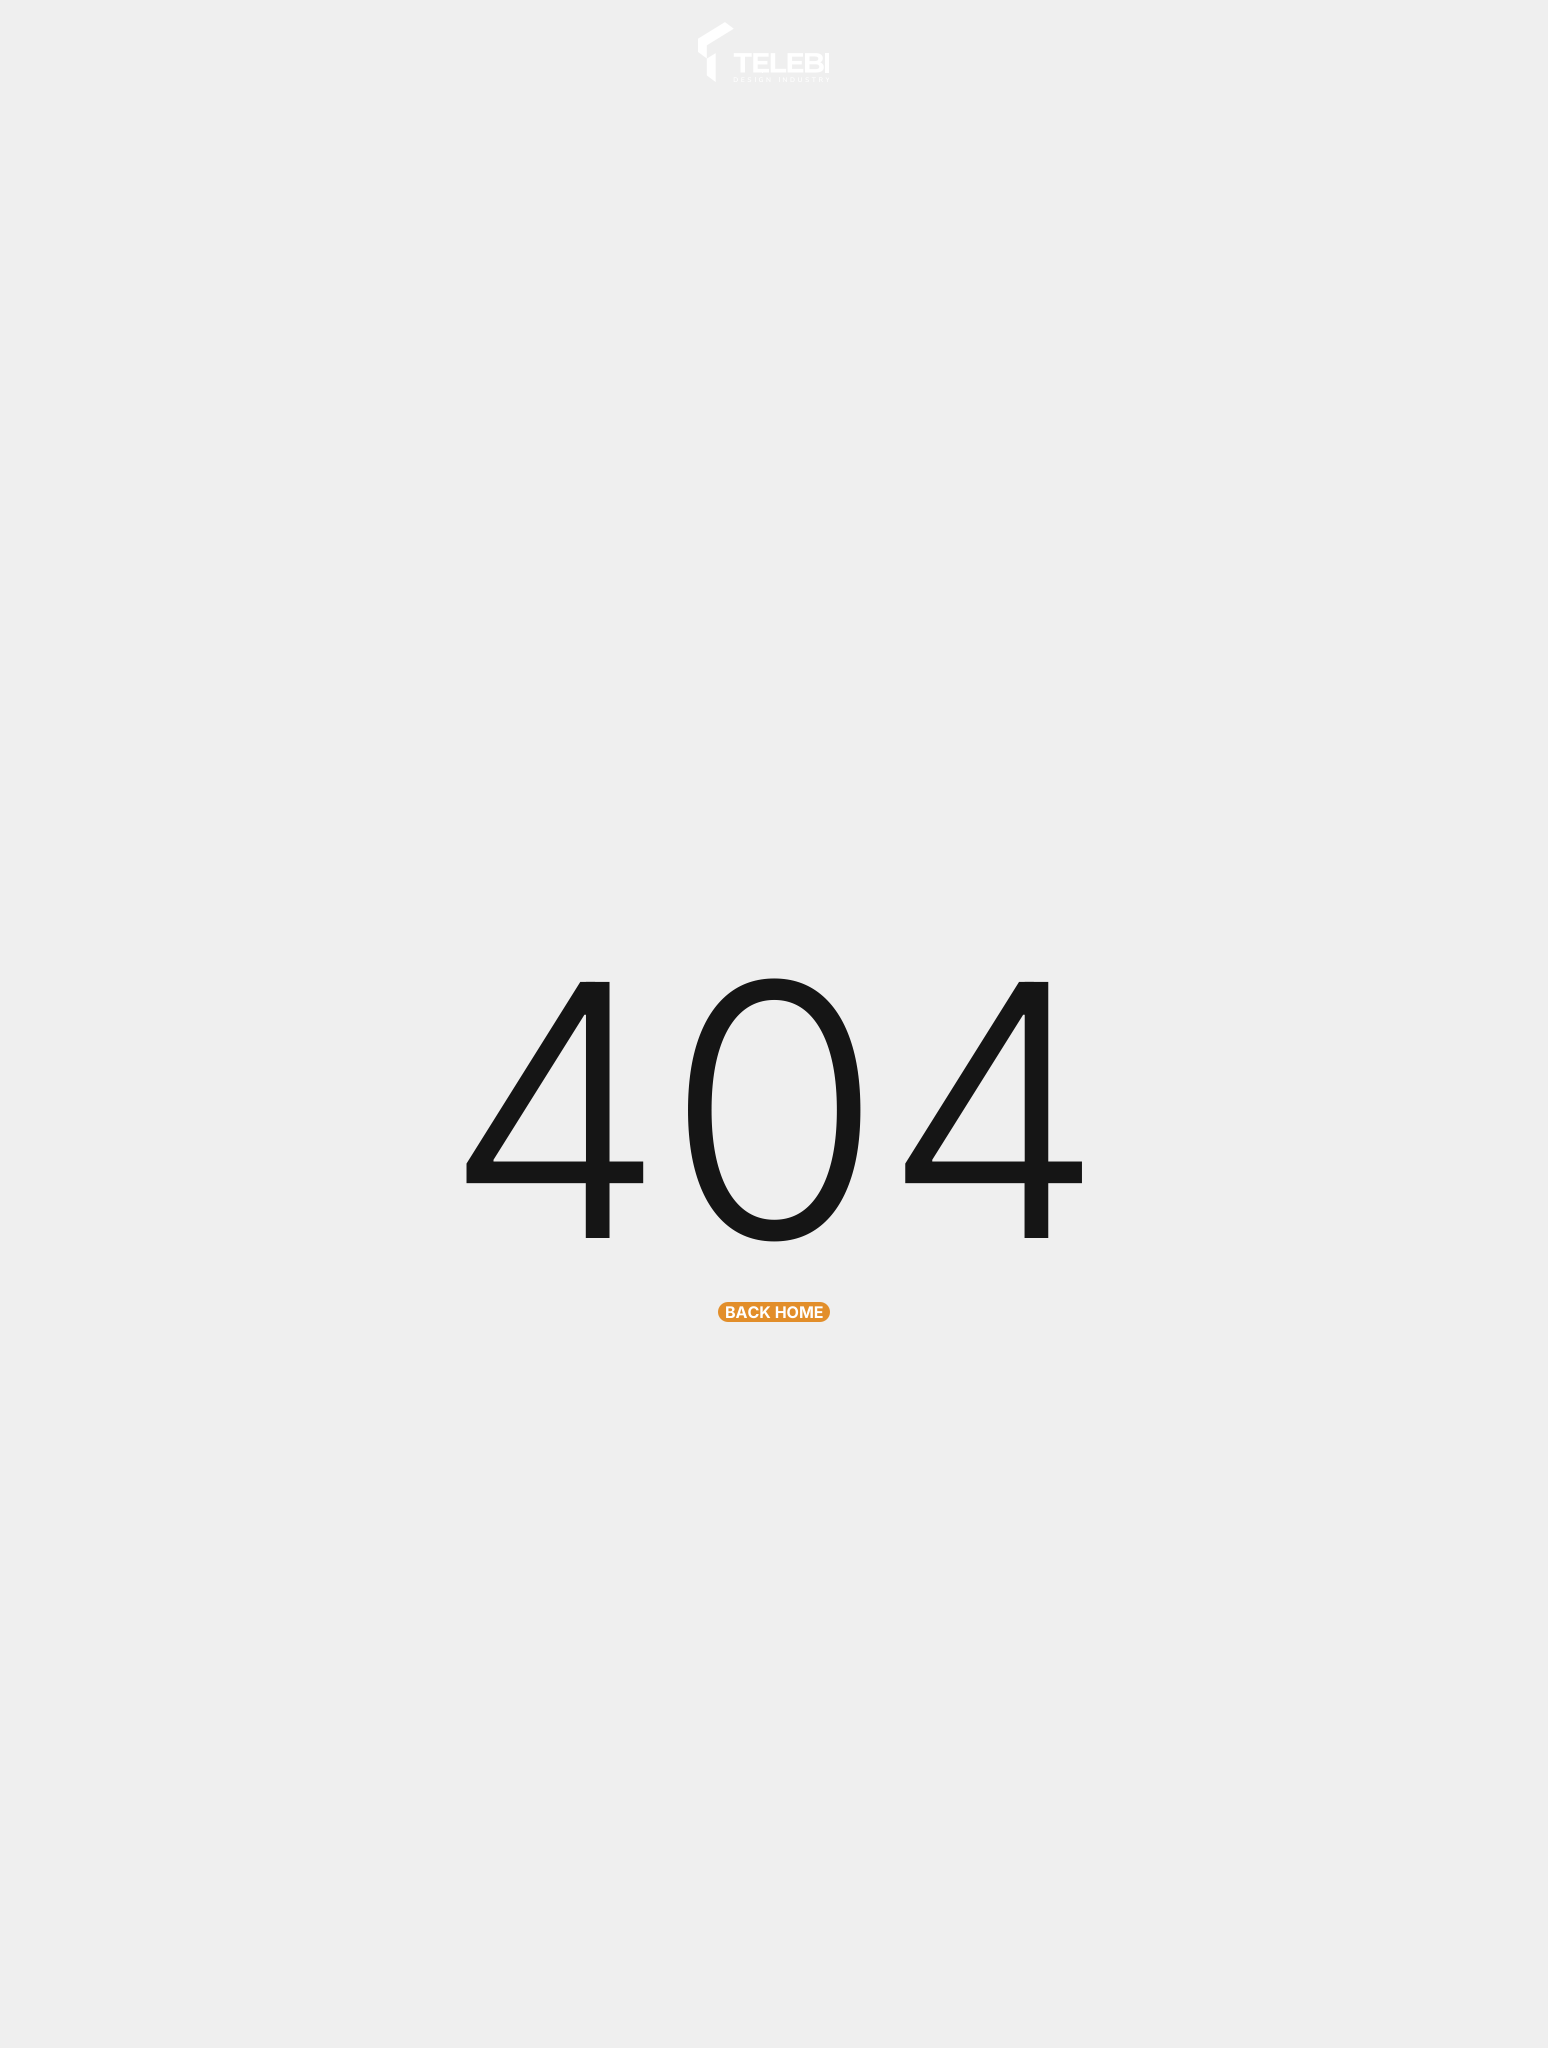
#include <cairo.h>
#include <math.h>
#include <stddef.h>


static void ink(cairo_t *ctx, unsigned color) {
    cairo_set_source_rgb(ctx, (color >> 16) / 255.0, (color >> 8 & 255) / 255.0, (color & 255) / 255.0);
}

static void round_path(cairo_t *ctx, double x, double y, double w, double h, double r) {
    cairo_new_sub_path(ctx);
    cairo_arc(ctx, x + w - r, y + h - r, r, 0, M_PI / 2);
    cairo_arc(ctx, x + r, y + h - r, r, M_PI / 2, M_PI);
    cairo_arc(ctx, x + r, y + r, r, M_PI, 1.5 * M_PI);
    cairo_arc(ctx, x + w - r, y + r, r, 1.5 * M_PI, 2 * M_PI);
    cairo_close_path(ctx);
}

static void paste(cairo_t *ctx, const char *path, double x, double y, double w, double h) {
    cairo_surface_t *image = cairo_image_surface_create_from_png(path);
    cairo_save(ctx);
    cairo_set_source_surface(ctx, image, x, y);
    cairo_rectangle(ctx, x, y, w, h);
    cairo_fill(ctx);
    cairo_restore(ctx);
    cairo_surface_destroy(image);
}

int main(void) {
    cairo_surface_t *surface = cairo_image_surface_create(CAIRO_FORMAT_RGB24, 1548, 2048);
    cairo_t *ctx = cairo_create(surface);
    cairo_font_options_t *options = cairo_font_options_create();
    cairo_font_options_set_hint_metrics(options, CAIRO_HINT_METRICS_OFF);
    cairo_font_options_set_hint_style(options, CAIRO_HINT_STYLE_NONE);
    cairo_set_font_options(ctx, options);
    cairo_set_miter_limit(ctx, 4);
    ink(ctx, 0xEFEFEF);
    cairo_paint(ctx);
    paste(ctx, "media/1.png", 698, 22, 131, 60);
    cairo_select_font_face(ctx, "Inter Light", CAIRO_FONT_SLANT_NORMAL, CAIRO_FONT_WEIGHT_NORMAL);
    cairo_set_font_size(ctx, 352);
    ink(ctx, 0x151515);
    cairo_move_to(ctx, 444, 1238);
    cairo_show_text(ctx, "404");
    cairo_save(ctx);
    round_path(ctx, 718, 1302, 112, 20, 10);
    cairo_clip(ctx);
    ink(ctx, 0xE28E2A);
    cairo_arc(ctx, 774, 1312, 128, 0, 2 * M_PI);
    cairo_fill(ctx);
    cairo_restore(ctx);
    cairo_select_font_face(ctx, "Inter", CAIRO_FONT_SLANT_NORMAL, CAIRO_FONT_WEIGHT_BOLD);
    cairo_set_font_size(ctx, 16);
    ink(ctx, 0xFFFFFF);
    cairo_move_to(ctx, 725, 1318);
    cairo_show_text(ctx, "BACK HOME");
    cairo_surface_write_to_png(surface, "image.png");
    cairo_font_options_destroy(options);
    cairo_destroy(ctx);
    cairo_surface_destroy(surface);
    return 0;
}
